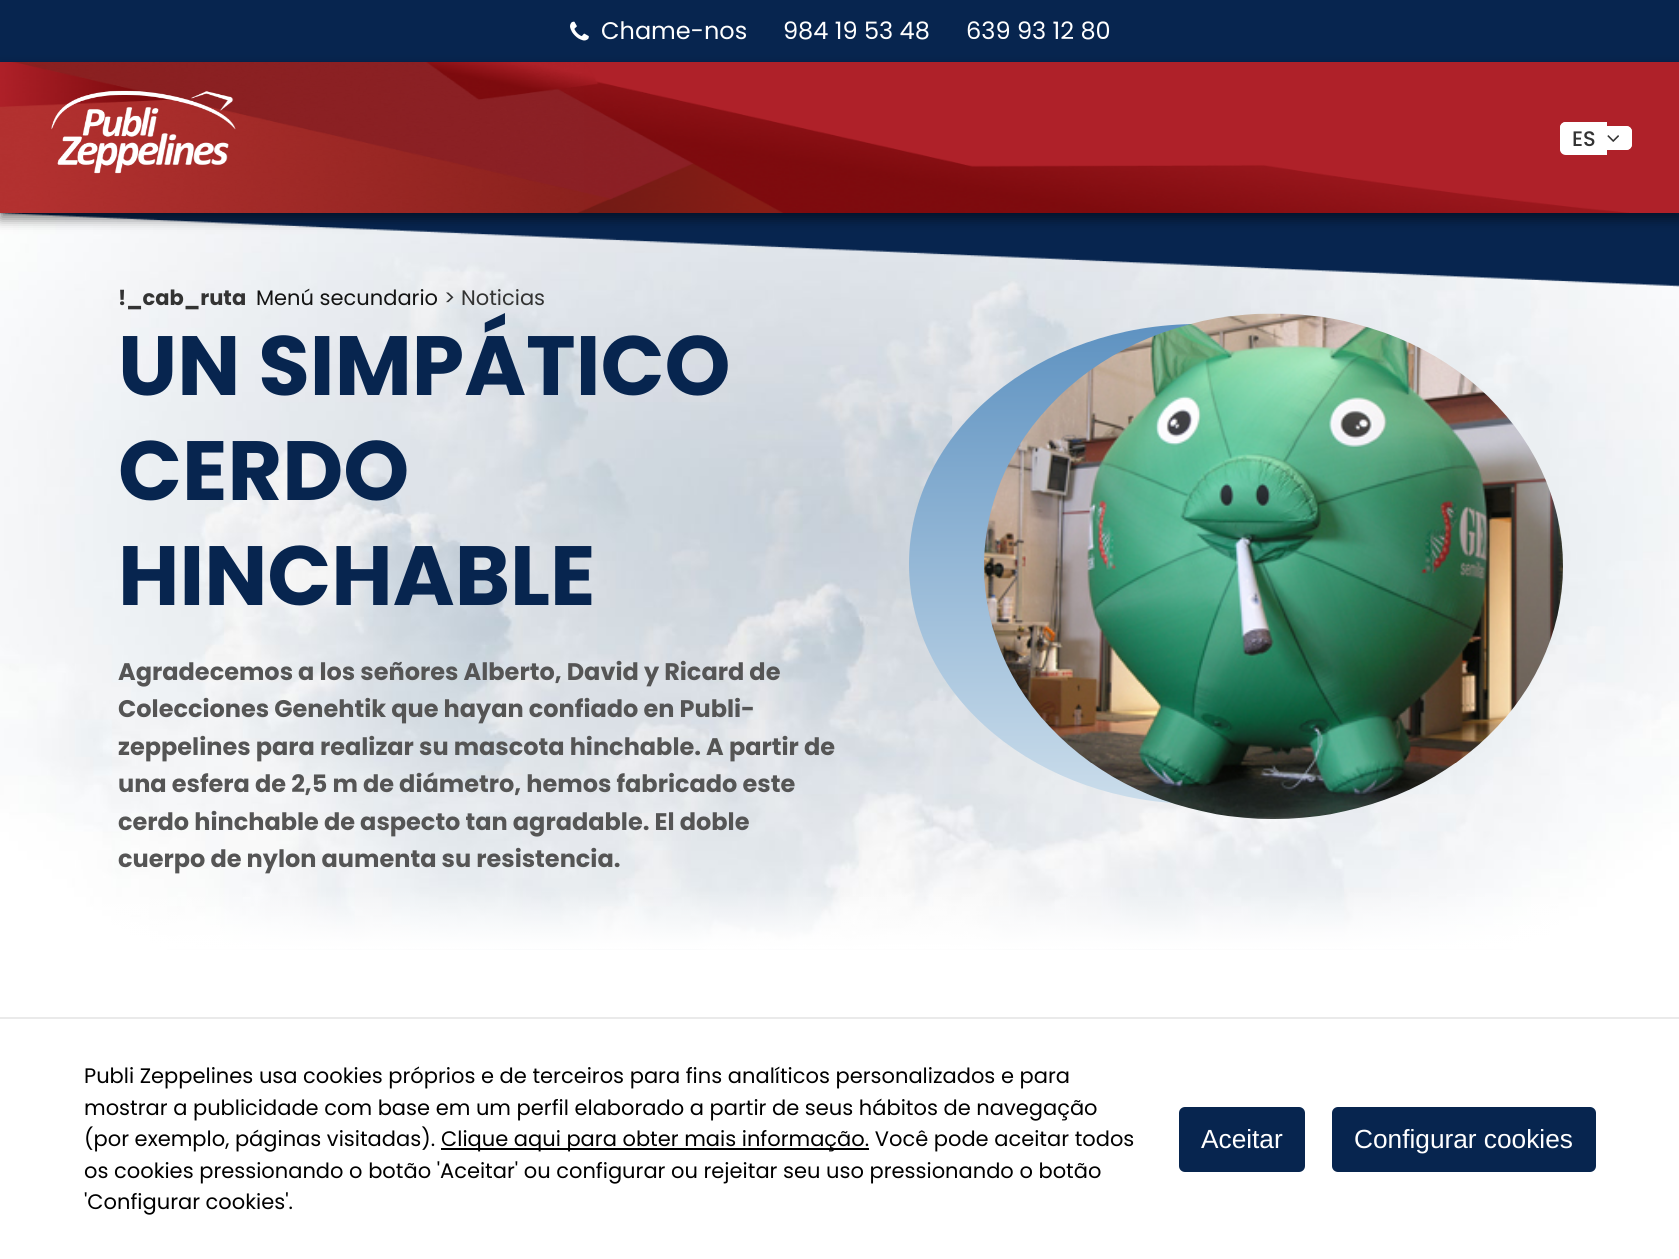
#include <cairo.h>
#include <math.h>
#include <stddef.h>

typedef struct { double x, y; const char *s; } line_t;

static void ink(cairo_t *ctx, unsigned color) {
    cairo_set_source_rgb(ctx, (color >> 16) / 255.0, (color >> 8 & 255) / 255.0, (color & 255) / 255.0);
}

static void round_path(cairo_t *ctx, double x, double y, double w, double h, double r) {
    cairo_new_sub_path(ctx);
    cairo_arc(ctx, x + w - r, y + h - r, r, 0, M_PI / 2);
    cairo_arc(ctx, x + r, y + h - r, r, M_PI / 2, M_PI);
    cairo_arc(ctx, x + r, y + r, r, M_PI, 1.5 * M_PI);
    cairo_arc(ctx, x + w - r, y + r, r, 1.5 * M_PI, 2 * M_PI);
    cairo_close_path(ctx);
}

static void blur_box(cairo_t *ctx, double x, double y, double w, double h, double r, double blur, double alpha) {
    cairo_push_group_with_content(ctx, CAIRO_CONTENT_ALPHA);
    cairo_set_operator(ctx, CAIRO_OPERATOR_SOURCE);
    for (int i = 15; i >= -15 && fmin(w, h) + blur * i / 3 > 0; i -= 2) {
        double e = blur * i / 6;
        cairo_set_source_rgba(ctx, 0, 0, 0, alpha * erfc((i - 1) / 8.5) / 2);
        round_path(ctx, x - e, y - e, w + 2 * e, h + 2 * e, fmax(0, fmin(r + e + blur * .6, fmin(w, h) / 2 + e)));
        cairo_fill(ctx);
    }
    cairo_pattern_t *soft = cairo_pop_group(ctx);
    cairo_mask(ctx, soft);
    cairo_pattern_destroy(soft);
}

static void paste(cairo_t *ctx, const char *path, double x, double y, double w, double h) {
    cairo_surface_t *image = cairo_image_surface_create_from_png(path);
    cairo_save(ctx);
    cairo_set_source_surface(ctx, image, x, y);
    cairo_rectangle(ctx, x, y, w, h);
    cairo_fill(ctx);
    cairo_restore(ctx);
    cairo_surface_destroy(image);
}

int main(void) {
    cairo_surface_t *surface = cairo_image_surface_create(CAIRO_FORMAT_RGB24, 1679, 1259);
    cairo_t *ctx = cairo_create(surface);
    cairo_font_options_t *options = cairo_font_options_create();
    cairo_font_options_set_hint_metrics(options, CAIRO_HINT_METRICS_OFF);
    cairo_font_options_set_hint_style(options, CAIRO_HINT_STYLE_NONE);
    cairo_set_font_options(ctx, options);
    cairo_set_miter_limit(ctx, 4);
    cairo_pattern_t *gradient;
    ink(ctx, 0xFFFFFF);
    cairo_paint(ctx);
    ink(ctx, 0x07254F);
    cairo_rectangle(ctx, 0, 0, 1679, 62);
    cairo_fill(ctx);
    paste(ctx, "media/1.png", 570, 21, 19, 20);
    cairo_select_font_face(ctx, "Poppins", CAIRO_FONT_SLANT_NORMAL, CAIRO_FONT_WEIGHT_NORMAL);
    cairo_set_font_size(ctx, 24);
    ink(ctx, 0xFFFFFF);
    {
        static const line_t items[] = {
            {601, 39, "Chame-nos"},
            {783, 39, "984 19 53 48"},
            {966, 39, "639 93 12 80"},
        };
        for (size_t i = 0; i < sizeof items / sizeof *items; i++) {
            cairo_move_to(ctx, items[i].x, items[i].y);
            cairo_show_text(ctx, items[i].s);
        }
    }
    paste(ctx, "media/5.png", 0, 213, 1679, 737);
    ink(ctx, 0x000000);
    blur_box(ctx, 0, 68, 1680, 151, 0, 6, 0.5);
    ink(ctx, 0xAF2129);
    cairo_rectangle(ctx, 584, 62, 1095, 151);
    cairo_fill(ctx);
    paste(ctx, "media/2.png", 0, 62, 1629, 151);
    paste(ctx, "media/3.png", 51, 90, 185, 84);
    ink(ctx, 0xFFFFFF);
    cairo_new_path(ctx);
    cairo_move_to(ctx, 1566, 122);
    cairo_line_to(ctx, 1607, 122);
    cairo_line_to(ctx, 1607, 155);
    cairo_line_to(ctx, 1566, 155);
    cairo_curve_to(ctx, 1562.5, 155, 1560, 152.5, 1560, 149);
    cairo_line_to(ctx, 1560, 128);
    cairo_curve_to(ctx, 1560, 124.5, 1562.5, 122, 1566, 122);
    cairo_close_path(ctx);
    cairo_fill(ctx);
    cairo_set_fill_rule(ctx, CAIRO_FILL_RULE_EVEN_ODD);
    cairo_new_path(ctx);
    cairo_move_to(ctx, 1566, 122);
    cairo_line_to(ctx, 1606, 122);
    cairo_line_to(ctx, 1606, 154);
    cairo_line_to(ctx, 1566, 154);
    cairo_curve_to(ctx, 1563, 154, 1560, 152, 1560, 148);
    cairo_line_to(ctx, 1560, 128);
    cairo_curve_to(ctx, 1560, 124, 1563, 122, 1566, 122);
    cairo_close_path(ctx);
    cairo_move_to(ctx, 1566, 123);
    cairo_line_to(ctx, 1606, 123);
    cairo_line_to(ctx, 1606, 153);
    cairo_line_to(ctx, 1566, 153);
    cairo_curve_to(ctx, 1564, 153, 1562, 151, 1562, 148);
    cairo_line_to(ctx, 1562, 128);
    cairo_curve_to(ctx, 1562, 125, 1564, 123, 1566, 123);
    cairo_close_path(ctx);
    cairo_fill(ctx);
    cairo_new_path(ctx);
    cairo_move_to(ctx, 1607, 126);
    cairo_line_to(ctx, 1626, 126);
    cairo_curve_to(ctx, 1629.5, 126, 1632, 128.5, 1632, 132);
    cairo_line_to(ctx, 1632, 144);
    cairo_curve_to(ctx, 1632, 147.5, 1629.5, 150, 1626, 150);
    cairo_line_to(ctx, 1607, 150);
    cairo_close_path(ctx);
    cairo_fill(ctx);
    cairo_new_path(ctx);
    cairo_move_to(ctx, 1606.5, 126);
    cairo_line_to(ctx, 1626, 126);
    cairo_curve_to(ctx, 1629.5, 126, 1632, 128.5, 1632, 132);
    cairo_line_to(ctx, 1632, 144);
    cairo_curve_to(ctx, 1632, 147.5, 1629.5, 150, 1626, 150);
    cairo_line_to(ctx, 1606.5, 150);
    cairo_close_path(ctx);
    cairo_move_to(ctx, 1606.5, 127.5);
    cairo_line_to(ctx, 1626, 127.5);
    cairo_curve_to(ctx, 1628.5, 127.5, 1630.5, 129.5, 1630.5, 132);
    cairo_line_to(ctx, 1630.5, 144);
    cairo_curve_to(ctx, 1630.5, 146.5, 1628.5, 148.5, 1626, 148.5);
    cairo_line_to(ctx, 1606.5, 148.5);
    cairo_close_path(ctx);
    cairo_fill(ctx);
    cairo_select_font_face(ctx, "Poppins Medium", CAIRO_FONT_SLANT_NORMAL, CAIRO_FONT_WEIGHT_NORMAL);
    cairo_set_font_size(ctx, 21);
    ink(ctx, 0x333333);
    cairo_move_to(ctx, 1572, 146);
    cairo_show_text(ctx, "ES");
    paste(ctx, "media/4.png", 1607, 135, 12, 7);
    cairo_select_font_face(ctx, "Poppins", CAIRO_FONT_SLANT_NORMAL, CAIRO_FONT_WEIGHT_BOLD);
    cairo_move_to(ctx, 118, 305);
    cairo_show_text(ctx, "!_cab_ruta");
    cairo_select_font_face(ctx, "Poppins", CAIRO_FONT_SLANT_NORMAL, CAIRO_FONT_WEIGHT_NORMAL);
    ink(ctx, 0x131313);
    cairo_move_to(ctx, 256, 305);
    cairo_show_text(ctx, "Menú secundario");
    ink(ctx, 0x333333);
    cairo_move_to(ctx, 444, 305);
    cairo_show_text(ctx, ">");
    cairo_move_to(ctx, 461, 305);
    cairo_show_text(ctx, "Noticias");
    cairo_select_font_face(ctx, "Poppins", CAIRO_FONT_SLANT_NORMAL, CAIRO_FONT_WEIGHT_BOLD);
    cairo_set_font_size(ctx, 84);
    ink(ctx, 0x07254F);
    {
        static const line_t items[] = {
            {118, 395, "UN SIMPÁTICO"},
            {118, 500, "CERDO"},
            {118, 605, "HINCHABLE"},
        };
        for (size_t i = 0; i < sizeof items / sizeof *items; i++) {
            cairo_move_to(ctx, items[i].x, items[i].y);
            cairo_show_text(ctx, items[i].s);
        }
    }
    cairo_set_font_size(ctx, 24);
    ink(ctx, 0x555555);
    {
        static const line_t items[] = {
            {118, 680, "Agradecemos a los señores Alberto, David y Ricard de"},
            {118, 717, "Colecciones Genehtik que hayan confiado en Publi-"},
            {118, 755, "zeppelines para realizar su mascota hinchable. A partir de"},
            {118, 792, "una esfera de 2,5 m de diámetro, hemos fabricado este"},
            {118, 830, "cerdo hinchable de aspecto tan agradable. El doble"},
            {118, 867, "cuerpo de nylon aumenta su resistencia."},
        };
        for (size_t i = 0; i < sizeof items / sizeof *items; i++) {
            cairo_move_to(ctx, items[i].x, items[i].y);
            cairo_show_text(ctx, items[i].s);
        }
    }
    gradient = cairo_pattern_create_linear(1199, 324, 1199, 804);
    cairo_pattern_add_color_stop_rgba(gradient, 0, 0.369, 0.573, 0.757, 1);
    cairo_pattern_add_color_stop_rgba(gradient, 1, 0.796, 0.867, 0.922, 1);
    cairo_set_source(ctx, gradient);
    cairo_pattern_destroy(gradient);
    cairo_new_path(ctx);
    cairo_move_to(ctx, 1198.5, 324);
    cairo_curve_to(ctx, 1358.5, 324, 1488, 431.5, 1488, 564);
    cairo_curve_to(ctx, 1488, 696.5, 1358.5, 804, 1198.5, 804);
    cairo_curve_to(ctx, 1038.5, 804, 909, 696.5, 909, 564);
    cairo_curve_to(ctx, 909, 431.5, 1038.5, 324, 1198.5, 324);
    cairo_close_path(ctx);
    cairo_fill(ctx);
    paste(ctx, "media/6.png", 984, 313, 579, 506);
    ink(ctx, 0xEAEAEA);
    cairo_rectangle(ctx, 0, 1017, 1679, 2);
    cairo_fill(ctx);
    cairo_select_font_face(ctx, "Poppins", CAIRO_FONT_SLANT_NORMAL, CAIRO_FONT_WEIGHT_NORMAL);
    cairo_set_font_size(ctx, 21);
    ink(ctx, 0x000000);
    {
        static const line_t items[] = {
            {84, 1083, "Publi Zeppelines usa cookies próprios e de terceiros para fins analíticos personalizados e para"},
            {84, 1115, "mostrar a publicidade com base em um perfil elaborado a partir de seus hábitos de navegação"},
            {84, 1146, "(por exemplo, páginas visitadas)."},
        };
        for (size_t i = 0; i < sizeof items / sizeof *items; i++) {
            cairo_move_to(ctx, items[i].x, items[i].y);
            cairo_show_text(ctx, items[i].s);
        }
    }
    cairo_rectangle(ctx, 441, 1148, 428, 2);
    cairo_fill(ctx);
    {
        static const line_t items[] = {
            {441, 1146, "Clique aqui para obter mais informação. Você pode aceitar todos"},
            {84, 1178, "os cookies pressionando o botão 'Aceitar' ou configurar ou rejeitar seu uso pressionando o botão"},
            {84, 1209, "'Configurar cookies'."},
        };
        for (size_t i = 0; i < sizeof items / sizeof *items; i++) {
            cairo_move_to(ctx, items[i].x, items[i].y);
            cairo_show_text(ctx, items[i].s);
        }
    }
    ink(ctx, 0x07254F);
    round_path(ctx, 1179, 1107, 126, 65, 6);
    cairo_fill(ctx);
    cairo_select_font_face(ctx, "Liberation Sans", CAIRO_FONT_SLANT_NORMAL, CAIRO_FONT_WEIGHT_NORMAL);
    cairo_set_font_size(ctx, 26.25);
    ink(ctx, 0xFFFFFF);
    cairo_move_to(ctx, 1201, 1148);
    cairo_show_text(ctx, "Aceitar");
    ink(ctx, 0x07254F);
    round_path(ctx, 1332, 1107, 264, 65, 6);
    cairo_fill(ctx);
    ink(ctx, 0xFFFFFF);
    cairo_move_to(ctx, 1354, 1148);
    cairo_show_text(ctx, "Configurar cookies");
    cairo_surface_write_to_png(surface, "image.png");
    cairo_font_options_destroy(options);
    cairo_destroy(ctx);
    cairo_surface_destroy(surface);
    return 0;
}
